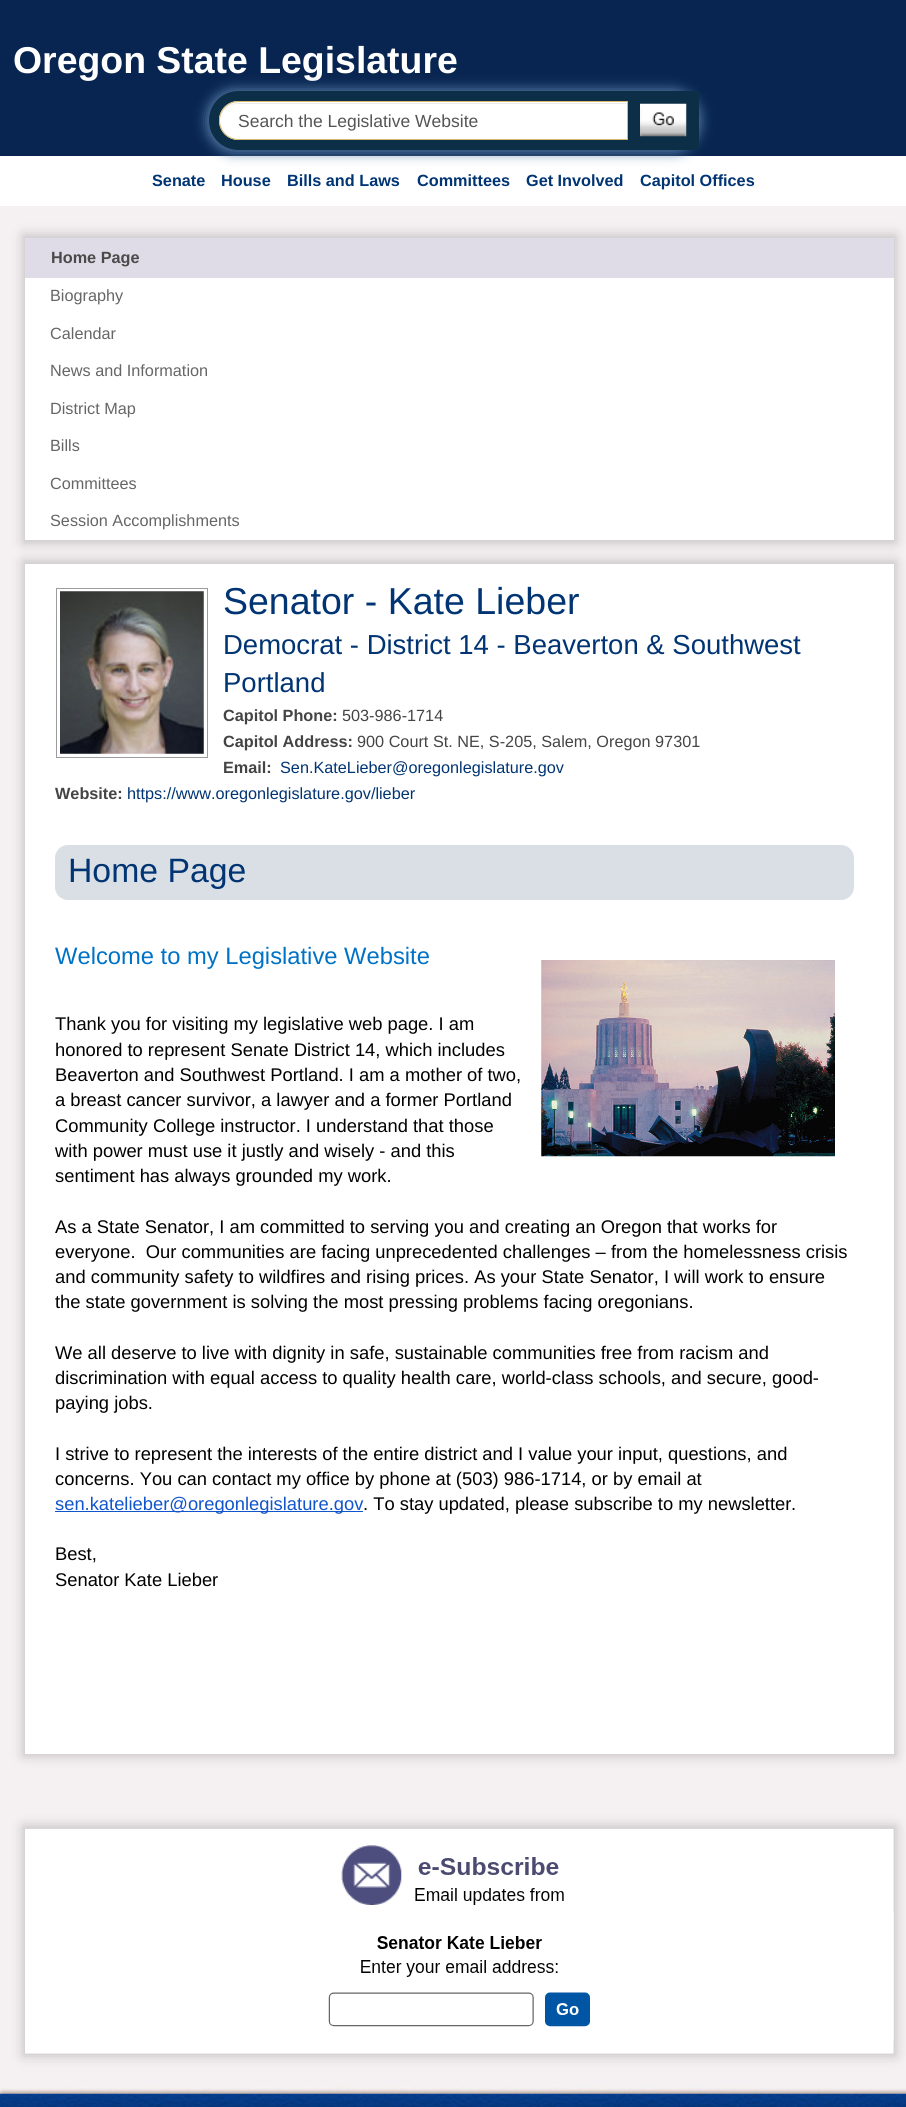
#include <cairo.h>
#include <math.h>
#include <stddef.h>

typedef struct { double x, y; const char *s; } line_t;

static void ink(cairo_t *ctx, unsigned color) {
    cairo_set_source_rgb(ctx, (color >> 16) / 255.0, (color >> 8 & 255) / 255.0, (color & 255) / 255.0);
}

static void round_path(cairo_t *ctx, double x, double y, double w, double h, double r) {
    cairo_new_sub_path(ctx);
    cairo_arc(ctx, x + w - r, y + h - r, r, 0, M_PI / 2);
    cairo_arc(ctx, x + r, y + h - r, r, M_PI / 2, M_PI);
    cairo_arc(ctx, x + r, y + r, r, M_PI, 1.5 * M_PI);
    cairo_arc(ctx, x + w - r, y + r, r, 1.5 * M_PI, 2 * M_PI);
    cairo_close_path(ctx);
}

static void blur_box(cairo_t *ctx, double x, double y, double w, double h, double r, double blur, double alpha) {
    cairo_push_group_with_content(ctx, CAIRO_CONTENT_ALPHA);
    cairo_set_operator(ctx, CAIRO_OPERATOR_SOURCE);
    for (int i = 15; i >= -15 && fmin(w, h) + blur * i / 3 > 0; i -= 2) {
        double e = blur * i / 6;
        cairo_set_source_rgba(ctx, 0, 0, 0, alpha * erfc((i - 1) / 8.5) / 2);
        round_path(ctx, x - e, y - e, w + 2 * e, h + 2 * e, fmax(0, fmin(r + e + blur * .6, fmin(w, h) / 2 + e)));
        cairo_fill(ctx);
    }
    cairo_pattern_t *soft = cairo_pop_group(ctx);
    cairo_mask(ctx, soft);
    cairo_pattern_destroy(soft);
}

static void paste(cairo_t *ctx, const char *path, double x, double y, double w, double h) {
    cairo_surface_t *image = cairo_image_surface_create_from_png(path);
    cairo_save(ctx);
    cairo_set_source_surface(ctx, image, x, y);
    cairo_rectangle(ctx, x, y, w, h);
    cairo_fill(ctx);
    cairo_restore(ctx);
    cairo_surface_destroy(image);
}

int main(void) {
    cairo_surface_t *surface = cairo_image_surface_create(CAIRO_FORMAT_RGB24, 906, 2107);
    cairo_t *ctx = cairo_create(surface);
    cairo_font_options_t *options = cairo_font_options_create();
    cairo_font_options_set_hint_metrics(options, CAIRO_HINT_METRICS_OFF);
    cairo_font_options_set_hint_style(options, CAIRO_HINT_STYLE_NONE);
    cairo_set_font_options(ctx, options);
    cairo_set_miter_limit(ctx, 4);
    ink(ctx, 0xF5F1F2);
    cairo_paint(ctx);
    ink(ctx, 0x082551);
    cairo_rectangle(ctx, 0, 0, 906, 156);
    cairo_fill(ctx);
    cairo_select_font_face(ctx, "Liberation Sans", CAIRO_FONT_SLANT_NORMAL, CAIRO_FONT_WEIGHT_BOLD);
    cairo_set_font_size(ctx, 37.4);
    ink(ctx, 0xFFFFFF);
    cairo_move_to(ctx, 13, 73);
    cairo_show_text(ctx, "Oregon State Legislature");
    cairo_rectangle(ctx, 0, 156, 906, 50);
    cairo_fill(ctx);
    ink(ctx, 0x547AA5);
    blur_box(ctx, 206, 89, 495, 64, 32, 6, 1);
    ink(ctx, 0x0C2F47);
    cairo_new_path(ctx);
    cairo_move_to(ctx, 238.5, 91);
    cairo_line_to(ctx, 699, 91);
    cairo_line_to(ctx, 699, 150);
    cairo_line_to(ctx, 238.5, 150);
    cairo_curve_to(ctx, 222, 150, 209, 137, 209, 120.5);
    cairo_curve_to(ctx, 209, 104, 222, 91, 238.5, 91);
    cairo_close_path(ctx);
    cairo_fill(ctx);
    ink(ctx, 0xFFFFFF);
    cairo_new_path(ctx);
    cairo_move_to(ctx, 238.5, 101);
    cairo_line_to(ctx, 628, 101);
    cairo_line_to(ctx, 628, 140);
    cairo_line_to(ctx, 238.5, 140);
    cairo_curve_to(ctx, 227.5, 140, 219, 131.5, 219, 120.5);
    cairo_curve_to(ctx, 219, 109.5, 227.5, 101, 238.5, 101);
    cairo_close_path(ctx);
    cairo_fill(ctx);
    ink(ctx, 0xECECEC);
    cairo_new_path(ctx);
    cairo_move_to(ctx, 238, 104);
    cairo_line_to(ctx, 626, 104);
    cairo_line_to(ctx, 626, 103);
    cairo_line_to(ctx, 238, 103);
    cairo_curve_to(ctx, 228, 103, 220, 111, 220, 121);
    cairo_curve_to(ctx, 220, 112, 228, 104, 238, 104);
    cairo_close_path(ctx);
    cairo_fill(ctx);
    cairo_new_path(ctx);
    cairo_move_to(ctx, 238.5, 101.5);
    cairo_line_to(ctx, 627.5, 101.5);
    cairo_line_to(ctx, 627.5, 139.5);
    cairo_line_to(ctx, 238.5, 139.5);
    cairo_curve_to(ctx, 228, 139.5, 219.5, 131, 219.5, 120.5);
    cairo_curve_to(ctx, 219.5, 110, 228, 101.5, 238.5, 101.5);
    cairo_close_path(ctx);
    ink(ctx, 0xDAB76C);
    cairo_set_line_width(ctx, 1);
    cairo_stroke(ctx);
    cairo_select_font_face(ctx, "Liberation Sans", CAIRO_FONT_SLANT_NORMAL, CAIRO_FONT_WEIGHT_NORMAL);
    cairo_set_font_size(ctx, 17.5);
    ink(ctx, 0x555555);
    cairo_move_to(ctx, 238, 127);
    cairo_show_text(ctx, "Search the Legislative Website");
    paste(ctx, "media/1.png", 640, 103, 47, 34);
    cairo_select_font_face(ctx, "Liberation Sans", CAIRO_FONT_SLANT_NORMAL, CAIRO_FONT_WEIGHT_BOLD);
    cairo_set_font_size(ctx, 16.25);
    ink(ctx, 0x013473);
    {
        static const line_t items[] = {
            {152, 186, "Senate"},
            {221, 186, "House"},
            {287, 186, "Bills and Laws"},
            {417, 186, "Committees"},
            {526, 186, "Get Involved"},
            {640, 186, "Capitol Offices"},
        };
        for (size_t i = 0; i < sizeof items / sizeof *items; i++) {
            cairo_move_to(ctx, items[i].x, items[i].y);
            cairo_show_text(ctx, items[i].s);
        }
    }
    ink(ctx, 0x000000);
    blur_box(ctx, 23, 235, 873, 308, 0, 6, 0.2);
    ink(ctx, 0xFFFFFF);
    cairo_rectangle(ctx, 25, 278, 869, 262);
    cairo_fill(ctx);
    ink(ctx, 0xDFDBE7);
    cairo_rectangle(ctx, 25, 238, 869, 40);
    cairo_fill(ctx);
    ink(ctx, 0x4B4A4A);
    cairo_move_to(ctx, 51, 263);
    cairo_show_text(ctx, "Home Page");
    cairo_select_font_face(ctx, "Liberation Sans", CAIRO_FONT_SLANT_NORMAL, CAIRO_FONT_WEIGHT_NORMAL);
    ink(ctx, 0x666666);
    {
        static const line_t items[] = {
            {50, 301, "Biography"},
            {50, 339, "Calendar"},
            {50, 376, "News and Information"},
            {50, 414, "District Map"},
            {50, 451, "Bills"},
            {50, 489, "Committees"},
            {50, 526, "Session Accomplishments"},
        };
        for (size_t i = 0; i < sizeof items / sizeof *items; i++) {
            cairo_move_to(ctx, items[i].x, items[i].y);
            cairo_show_text(ctx, items[i].s);
        }
    }
    ink(ctx, 0x000000);
    blur_box(ctx, 23, 561, 873, 1195, 0, 6, 0.2);
    ink(ctx, 0xFFFFFF);
    cairo_rectangle(ctx, 25, 564, 869, 1190);
    cairo_fill(ctx);
    paste(ctx, "media/2.png", 60, 591, 144, 163);
    cairo_rectangle(ctx, 56.5, 588.5, 151, 169);
    ink(ctx, 0x9D9C9C);
    cairo_stroke(ctx);
    cairo_set_font_size(ctx, 37.5);
    ink(ctx, 0x013473);
    cairo_move_to(ctx, 223, 614);
    cairo_show_text(ctx, "Senator - Kate Lieber");
    cairo_set_font_size(ctx, 27.5);
    cairo_move_to(ctx, 223, 654);
    cairo_show_text(ctx, "Democrat - District 14 - Beaverton & Southwest");
    cairo_move_to(ctx, 223, 692);
    cairo_show_text(ctx, "Portland");
    cairo_select_font_face(ctx, "Liberation Sans", CAIRO_FONT_SLANT_NORMAL, CAIRO_FONT_WEIGHT_BOLD);
    cairo_set_font_size(ctx, 16.25);
    ink(ctx, 0x444444);
    cairo_move_to(ctx, 223, 721);
    cairo_show_text(ctx, "Capitol Phone:");
    cairo_select_font_face(ctx, "Liberation Sans", CAIRO_FONT_SLANT_NORMAL, CAIRO_FONT_WEIGHT_NORMAL);
    cairo_move_to(ctx, 342, 721);
    cairo_show_text(ctx, "503-986-1714");
    cairo_select_font_face(ctx, "Liberation Sans", CAIRO_FONT_SLANT_NORMAL, CAIRO_FONT_WEIGHT_BOLD);
    cairo_move_to(ctx, 223, 747);
    cairo_show_text(ctx, "Capitol Address:");
    cairo_select_font_face(ctx, "Liberation Sans", CAIRO_FONT_SLANT_NORMAL, CAIRO_FONT_WEIGHT_NORMAL);
    cairo_move_to(ctx, 357, 747);
    cairo_show_text(ctx, "900 Court St. NE, S-205, Salem, Oregon 97301");
    cairo_select_font_face(ctx, "Liberation Sans", CAIRO_FONT_SLANT_NORMAL, CAIRO_FONT_WEIGHT_BOLD);
    cairo_move_to(ctx, 223, 773);
    cairo_show_text(ctx, "Email:");
    cairo_select_font_face(ctx, "Liberation Sans", CAIRO_FONT_SLANT_NORMAL, CAIRO_FONT_WEIGHT_NORMAL);
    ink(ctx, 0x013473);
    cairo_move_to(ctx, 280, 773);
    cairo_show_text(ctx, "Sen.KateLieber@oregonlegislature.gov");
    cairo_select_font_face(ctx, "Liberation Sans", CAIRO_FONT_SLANT_NORMAL, CAIRO_FONT_WEIGHT_BOLD);
    ink(ctx, 0x444444);
    cairo_move_to(ctx, 55, 799);
    cairo_show_text(ctx, "Website:");
    cairo_select_font_face(ctx, "Liberation Sans", CAIRO_FONT_SLANT_NORMAL, CAIRO_FONT_WEIGHT_NORMAL);
    ink(ctx, 0x013473);
    cairo_move_to(ctx, 127, 799);
    cairo_show_text(ctx, "https://www.oregonlegislature.gov/lieber");
    ink(ctx, 0xD9DFE5);
    round_path(ctx, 55, 845, 799, 55, 13);
    cairo_fill(ctx);
    cairo_set_font_size(ctx, 33.75);
    ink(ctx, 0x013473);
    cairo_move_to(ctx, 68, 882);
    cairo_show_text(ctx, "Home Page");
    cairo_set_font_size(ctx, 23.75);
    ink(ctx, 0x0072C6);
    cairo_move_to(ctx, 55, 964);
    cairo_show_text(ctx, "Welcome to my Legislative Website");
    paste(ctx, "media/3.png", 541, 960, 294, 197);
    cairo_set_font_size(ctx, 18.35);
    ink(ctx, 0x000000);
    {
        static const line_t items[] = {
            {55, 1030, "Thank you for visiting my legislative web page. I am"},
            {55, 1056, "honored to represent Senate District 14, which includes"},
            {55, 1081, "Beaverton and Southwest Portland. I am a mother of two,"},
            {55, 1106, "a breast cancer survivor, a lawyer and a former Portland"},
            {55, 1132, "Community College instructor. I understand that those"},
            {55, 1157, "with power must use it justly and wisely - and this"},
            {55, 1182, "sentiment has always grounded my work."},
            {55, 1233, "As a State Senator, I am committed to serving you and creating an Oregon that works for"},
            {55, 1258, "everyone.  Our communities are facing unprecedented challenges – from the homelessness crisis"},
            {55, 1283, "and community safety to wildfires and rising prices. As your State Senator, I will work to ensure"},
            {55, 1308, "the state government is solving the most pressing problems facing oregonians."},
            {55, 1359, "We all deserve to live with dignity in safe, sustainable communities free from racism and"},
            {55, 1384, "discrimination with equal access to quality health care, world-class schools, and secure, good-"},
            {55, 1409, "paying jobs."},
            {55, 1460, "I strive to represent the interests of the entire district and I value your input, questions, and"},
            {55, 1485, "concerns. You can contact my office by phone at (503) 986-1714, or by email at"},
        };
        for (size_t i = 0; i < sizeof items / sizeof *items; i++) {
            cairo_move_to(ctx, items[i].x, items[i].y);
            cairo_show_text(ctx, items[i].s);
        }
    }
    ink(ctx, 0x1155CC);
    cairo_rectangle(ctx, 55, 1511, 308, 1);
    cairo_fill(ctx);
    cairo_move_to(ctx, 55, 1510);
    cairo_show_text(ctx, "sen.katelieber@oregonlegislature.gov");
    ink(ctx, 0x000000);
    {
        static const line_t items[] = {
            {363, 1510, ". To stay updated, please subscribe to my newsletter"},
            {791, 1510, "."},
            {55, 1560, "Best,"},
            {55, 1586, "Senator Kate Lieber"},
        };
        for (size_t i = 0; i < sizeof items / sizeof *items; i++) {
            cairo_move_to(ctx, items[i].x, items[i].y);
            cairo_show_text(ctx, items[i].s);
        }
    }
    ink(ctx, 0x000000);
    blur_box(ctx, 23, 1826, 873, 230, 0, 6, 0.2);
    paste(ctx, "media/4.png", 25, 1828, 869, 226);
    paste(ctx, "media/5.png", 0, 2085, 906, 22);
    cairo_surface_write_to_png(surface, "image.png");
    cairo_font_options_destroy(options);
    cairo_destroy(ctx);
    cairo_surface_destroy(surface);
    return 0;
}
